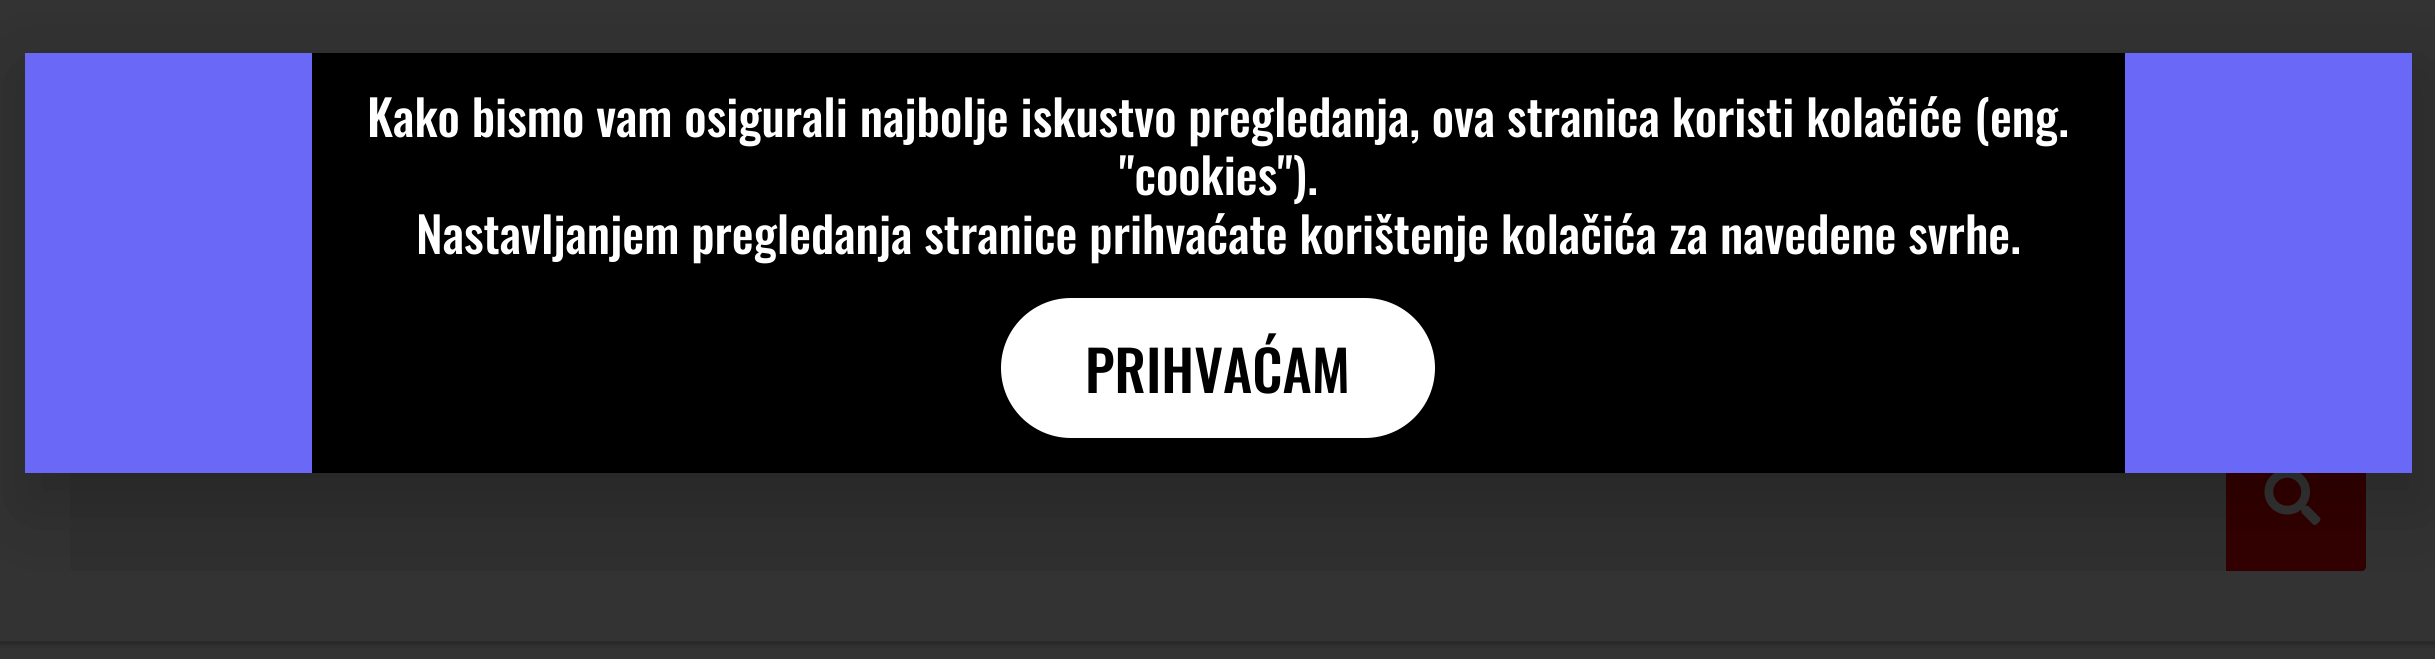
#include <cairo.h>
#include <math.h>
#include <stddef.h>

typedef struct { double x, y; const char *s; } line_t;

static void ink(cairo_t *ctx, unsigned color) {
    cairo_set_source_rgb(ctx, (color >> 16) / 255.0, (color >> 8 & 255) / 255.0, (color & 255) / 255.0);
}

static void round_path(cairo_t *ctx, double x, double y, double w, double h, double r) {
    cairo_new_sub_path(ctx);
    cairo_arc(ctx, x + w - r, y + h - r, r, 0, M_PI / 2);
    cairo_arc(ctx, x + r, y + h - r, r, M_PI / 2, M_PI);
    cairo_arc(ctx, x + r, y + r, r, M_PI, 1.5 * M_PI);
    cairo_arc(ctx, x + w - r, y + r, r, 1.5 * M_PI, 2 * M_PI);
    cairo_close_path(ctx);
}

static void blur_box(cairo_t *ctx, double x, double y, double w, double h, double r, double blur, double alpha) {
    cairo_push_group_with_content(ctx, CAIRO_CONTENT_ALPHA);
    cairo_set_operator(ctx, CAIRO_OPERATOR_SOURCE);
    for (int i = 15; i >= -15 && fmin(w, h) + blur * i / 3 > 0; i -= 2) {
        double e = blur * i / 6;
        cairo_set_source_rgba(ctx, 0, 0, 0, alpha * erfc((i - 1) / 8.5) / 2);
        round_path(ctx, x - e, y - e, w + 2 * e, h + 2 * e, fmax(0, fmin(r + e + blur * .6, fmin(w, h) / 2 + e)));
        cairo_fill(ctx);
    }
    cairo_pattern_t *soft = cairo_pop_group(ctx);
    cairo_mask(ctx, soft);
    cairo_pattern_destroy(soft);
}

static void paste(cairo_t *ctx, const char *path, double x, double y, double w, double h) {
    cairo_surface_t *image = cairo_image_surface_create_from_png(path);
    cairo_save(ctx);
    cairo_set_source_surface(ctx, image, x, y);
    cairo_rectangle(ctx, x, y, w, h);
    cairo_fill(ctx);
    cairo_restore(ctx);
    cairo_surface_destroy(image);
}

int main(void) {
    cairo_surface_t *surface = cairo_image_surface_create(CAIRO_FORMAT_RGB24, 2435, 659);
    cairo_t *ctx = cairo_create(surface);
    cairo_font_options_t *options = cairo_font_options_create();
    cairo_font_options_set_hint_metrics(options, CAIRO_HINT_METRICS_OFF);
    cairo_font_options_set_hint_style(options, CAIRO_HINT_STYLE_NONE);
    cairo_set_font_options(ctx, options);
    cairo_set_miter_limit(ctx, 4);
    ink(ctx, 0x333333);
    cairo_paint(ctx);
    ink(ctx, 0x303031);
    round_path(ctx, 70, 431, 2296, 140, 4);
    cairo_fill(ctx);
    ink(ctx, 0x330000);
    cairo_new_path(ctx);
    cairo_move_to(ctx, 2226, 431);
    cairo_line_to(ctx, 2362, 431);
    cairo_curve_to(ctx, 2364, 431, 2366, 433, 2366, 435);
    cairo_line_to(ctx, 2366, 567);
    cairo_curve_to(ctx, 2366, 569, 2364, 571, 2362, 571);
    cairo_line_to(ctx, 2226, 571);
    cairo_close_path(ctx);
    cairo_fill(ctx);
    paste(ctx, "media/1.png", 2264, 473, 57, 52);
    ink(ctx, 0x000000);
    blur_box(ctx, 21, 70, 2408, 441, 0, 40, 0.2);
    ink(ctx, 0x6A68F6);
    cairo_rectangle(ctx, 25, 53, 2387, 420);
    cairo_fill(ctx);
    ink(ctx, 0x000000);
    cairo_rectangle(ctx, 312, 53, 1813, 420);
    cairo_fill(ctx);
    cairo_select_font_face(ctx, "Oswald Medium", CAIRO_FONT_SLANT_NORMAL, CAIRO_FONT_WEIGHT_NORMAL);
    cairo_set_font_size(ctx, 49);
    ink(ctx, 0xFFFFFF);
    {
        static const line_t items[] = {
            {367, 137, "Kako bismo vam osigurali najbolje iskustvo pregledanja, ova stranica koristi kolačiće (eng."},
            {1119, 195, "\"cookies\")."},
            {416, 254, "Nastavljanjem pregledanja stranice prihvaćate korištenje kolačića za navedene svrhe."},
        };
        for (size_t i = 0; i < sizeof items / sizeof *items; i++) {
            cairo_move_to(ctx, items[i].x, items[i].y);
            cairo_show_text(ctx, items[i].s);
        }
    }
    round_path(ctx, 1001, 298, 434, 140, 70);
    cairo_fill(ctx);
    cairo_set_font_size(ctx, 56);
    ink(ctx, 0x000000);
    cairo_move_to(ctx, 1085, 393);
    cairo_show_text(ctx, "PRIHVAĆAM");
    ink(ctx, 0x303030);
    cairo_rectangle(ctx, 0, 645, 2435, 3);
    cairo_fill(ctx);
    ink(ctx, 0x2A2A2A);
    cairo_rectangle(ctx, 0, 641, 2435, 4);
    cairo_fill(ctx);
    cairo_surface_write_to_png(surface, "image.png");
    cairo_font_options_destroy(options);
    cairo_destroy(ctx);
    cairo_surface_destroy(surface);
    return 0;
}
